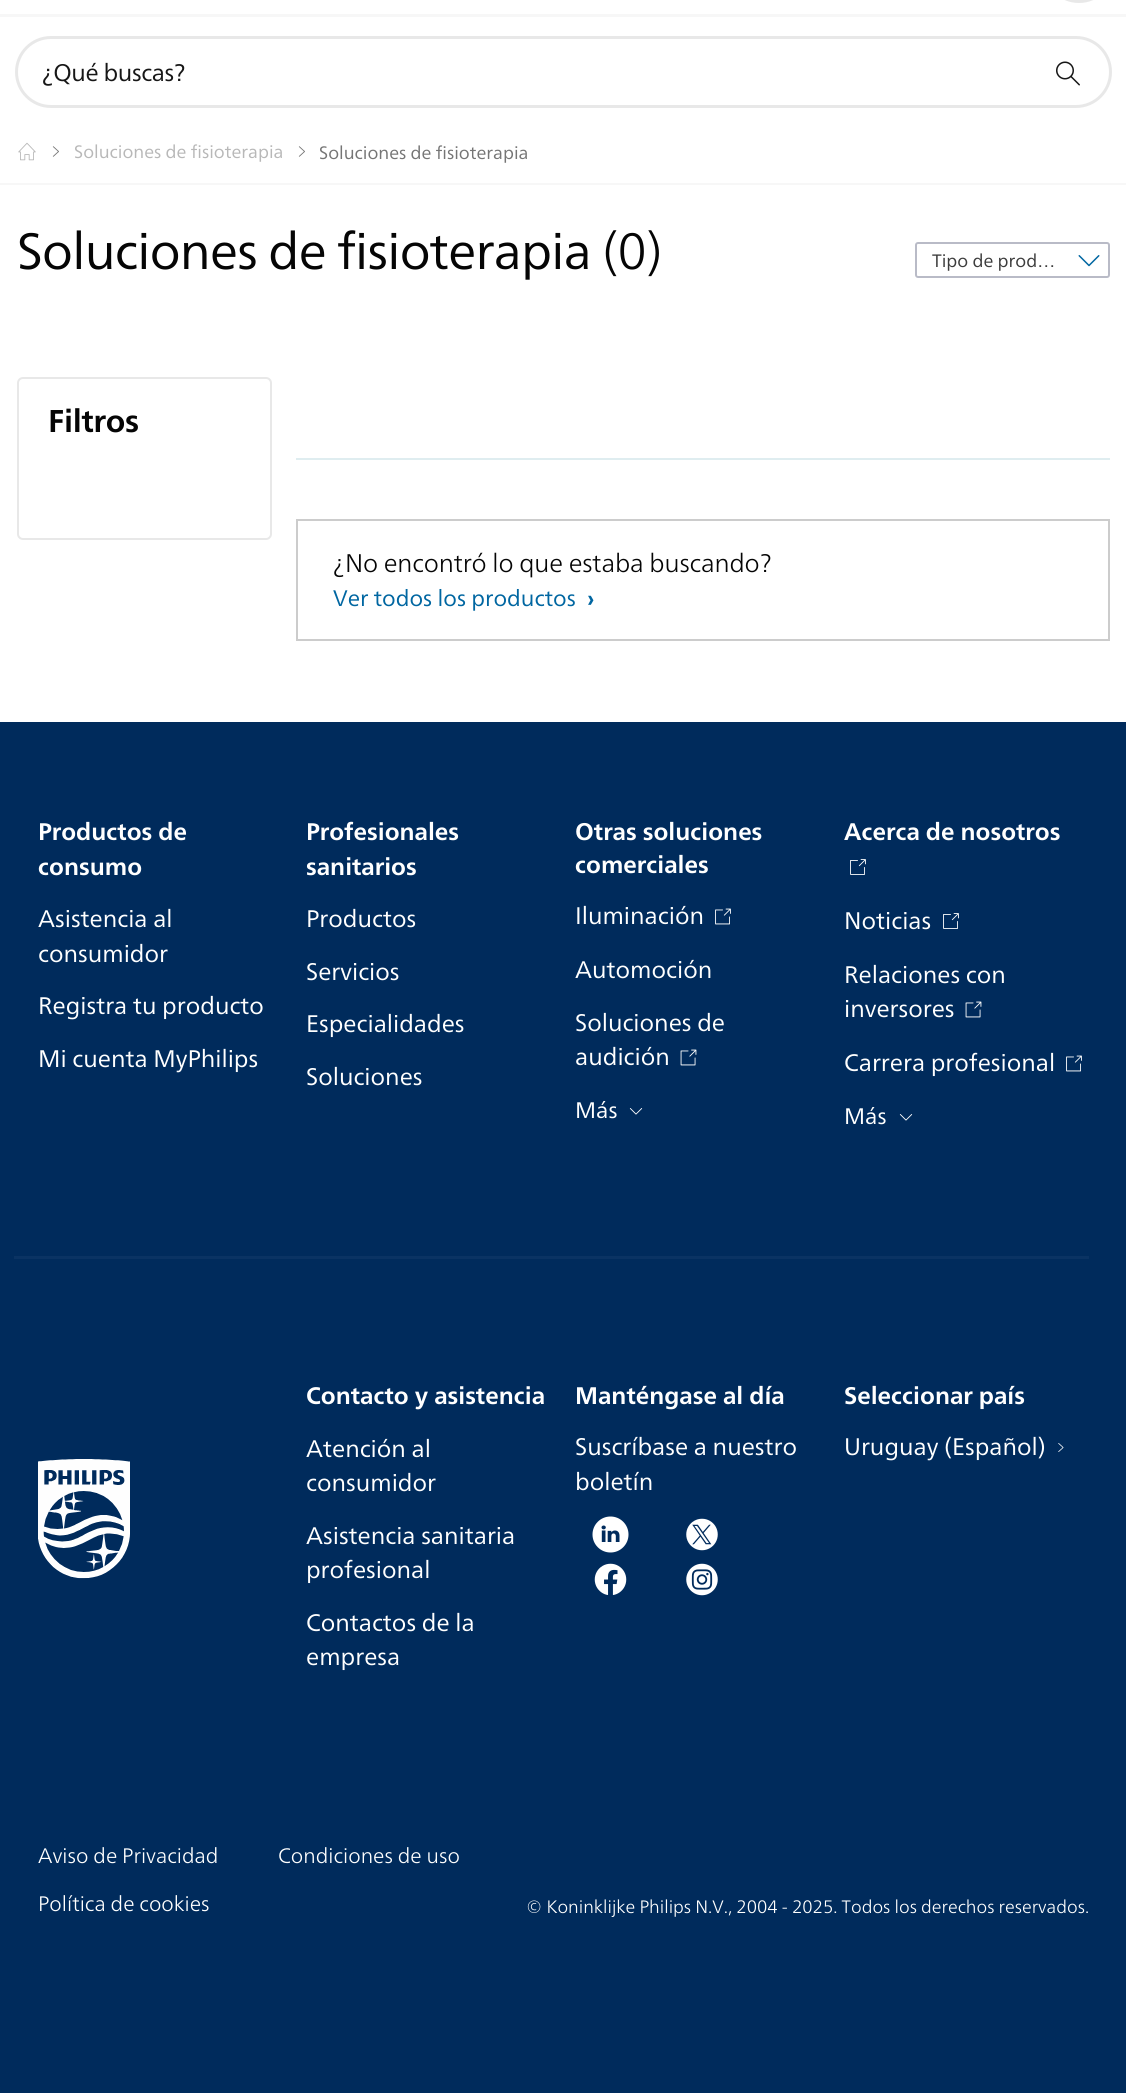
#include <cairo.h>
#include <math.h>
#include <stddef.h>

typedef struct { double x, y; const char *s; } line_t;

static void ink(cairo_t *ctx, unsigned color) {
    cairo_set_source_rgb(ctx, (color >> 16) / 255.0, (color >> 8 & 255) / 255.0, (color & 255) / 255.0);
}

static void write_spaced(cairo_t *ctx, double x, double y, const char *s, double letter, double word) {
    cairo_move_to(ctx, x, y);
    while (*s) {
        char ch[5] = {0};
        int n = 0;
        do ch[n++] = *s++; while ((*s & 0xC0) == 0x80);
        cairo_show_text(ctx, ch);
        cairo_rel_move_to(ctx, letter + word * (*ch == ' '), 0);
    }
}

static void round_path(cairo_t *ctx, double x, double y, double w, double h, double r) {
    cairo_new_sub_path(ctx);
    cairo_arc(ctx, x + w - r, y + h - r, r, 0, M_PI / 2);
    cairo_arc(ctx, x + r, y + h - r, r, M_PI / 2, M_PI);
    cairo_arc(ctx, x + r, y + r, r, M_PI, 1.5 * M_PI);
    cairo_arc(ctx, x + w - r, y + r, r, 1.5 * M_PI, 2 * M_PI);
    cairo_close_path(ctx);
}

static void paste(cairo_t *ctx, const char *path, double x, double y, double w, double h) {
    cairo_surface_t *image = cairo_image_surface_create_from_png(path);
    cairo_save(ctx);
    cairo_set_source_surface(ctx, image, x, y);
    cairo_rectangle(ctx, x, y, w, h);
    cairo_fill(ctx);
    cairo_restore(ctx);
    cairo_surface_destroy(image);
}

int main(void) {
    cairo_surface_t *surface = cairo_image_surface_create(CAIRO_FORMAT_RGB24, 1126, 2093);
    cairo_t *ctx = cairo_create(surface);
    cairo_font_options_t *options = cairo_font_options_create();
    cairo_font_options_set_hint_metrics(options, CAIRO_HINT_METRICS_OFF);
    cairo_font_options_set_hint_style(options, CAIRO_HINT_STYLE_NONE);
    cairo_set_font_options(ctx, options);
    cairo_set_miter_limit(ctx, 4);
    ink(ctx, 0xFFFFFF);
    cairo_paint(ctx);
    ink(ctx, 0xF7F7F7);
    cairo_rectangle(ctx, 0, 14, 1126, 3);
    cairo_fill(ctx);
    round_path(ctx, 1044.5, -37.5, 69, 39, 34.5);
    ink(ctx, 0xE8E8E8);
    cairo_set_line_width(ctx, 3);
    cairo_stroke(ctx);
    round_path(ctx, 16.5, 37.5, 1094, 69, 34.5);
    cairo_stroke(ctx);
    cairo_select_font_face(ctx, "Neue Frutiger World", CAIRO_FONT_SLANT_NORMAL, CAIRO_FONT_WEIGHT_NORMAL);
    cairo_set_font_size(ctx, 24);
    ink(ctx, 0x171717);
    write_spaced(ctx, 42, 81, "¿Qué buscas?", -0.4, 0);
    paste(ctx, "media/1.png", 1056, 61, 24, 25);
    ink(ctx, 0xF7F7F7);
    cairo_rectangle(ctx, 0, 183, 1126, 2);
    cairo_fill(ctx);
    paste(ctx, "media/2.png", 18, 142, 18, 19);
    paste(ctx, "media/3.png", 52, 146, 7, 11);
    cairo_set_font_size(ctx, 18);
    ink(ctx, 0xB8B8B8);
    cairo_move_to(ctx, 74, 158);
    cairo_show_text(ctx, "Soluciones de fisioterapia");
    paste(ctx, "media/3.png", 298, 146, 7, 11);
    ink(ctx, 0x757575);
    cairo_move_to(ctx, 319, 159);
    cairo_show_text(ctx, "Soluciones de fisioterapia");
    cairo_set_font_size(ctx, 51);
    ink(ctx, 0x050505);
    write_spaced(ctx, 17, 269, "Soluciones de fisioterapia", -0.75, 0);
    cairo_select_font_face(ctx, "Neue Frutiger World Light", CAIRO_FONT_SLANT_NORMAL, CAIRO_FONT_WEIGHT_NORMAL);
    write_spaced(ctx, 602, 269, "(0)", -0.75, 0);
    round_path(ctx, 916, 243, 193, 34, 2);
    ink(ctx, 0xB9BBC7);
    cairo_set_line_width(ctx, 2);
    cairo_stroke(ctx);
    cairo_select_font_face(ctx, "Neue Frutiger World", CAIRO_FONT_SLANT_NORMAL, CAIRO_FONT_WEIGHT_NORMAL);
    cairo_set_font_size(ctx, 18);
    ink(ctx, 0x3C3C3C);
    cairo_move_to(ctx, 932, 267);
    cairo_show_text(ctx, "Tipo de prod…");
    paste(ctx, "media/4.png", 1078, 255, 22, 12);
    round_path(ctx, 18, 378, 253, 161, 5);
    ink(ctx, 0xE8E8E8);
    cairo_stroke(ctx);
    cairo_select_font_face(ctx, "Neue Frutiger World", CAIRO_FONT_SLANT_NORMAL, CAIRO_FONT_WEIGHT_BOLD);
    cairo_set_font_size(ctx, 31.5);
    ink(ctx, 0x050505);
    write_spaced(ctx, 48, 432, "Filtros", -0.25, 0);
    ink(ctx, 0xDFEDF0);
    cairo_rectangle(ctx, 296, 458, 814, 2);
    cairo_fill(ctx);
    cairo_rectangle(ctx, 297, 520, 812, 120);
    ink(ctx, 0xCCCCCC);
    cairo_stroke(ctx);
    cairo_select_font_face(ctx, "Neue Frutiger World Light", CAIRO_FONT_SLANT_NORMAL, CAIRO_FONT_WEIGHT_NORMAL);
    cairo_set_font_size(ctx, 25.5);
    ink(ctx, 0x050505);
    write_spaced(ctx, 333, 572, "¿No encontró lo que estaba buscando?", -0.15, 0);
    cairo_select_font_face(ctx, "Neue Frutiger World", CAIRO_FONT_SLANT_NORMAL, CAIRO_FONT_WEIGHT_NORMAL);
    cairo_set_font_size(ctx, 22.5);
    ink(ctx, 0x0066A1);
    cairo_move_to(ctx, 333, 606);
    cairo_show_text(ctx, "Ver todos los productos");
    cairo_select_font_face(ctx, "Neue Frutiger World", CAIRO_FONT_SLANT_NORMAL, CAIRO_FONT_WEIGHT_BOLD);
    cairo_move_to(ctx, 587, 606);
    cairo_show_text(ctx, "›");
    ink(ctx, 0x002B5C);
    cairo_rectangle(ctx, 0, 722, 1126, 1371);
    cairo_fill(ctx);
    cairo_set_font_size(ctx, 24);
    ink(ctx, 0xFFFFFF);
    cairo_move_to(ctx, 38, 840);
    cairo_show_text(ctx, "Productos de");
    cairo_move_to(ctx, 38, 875);
    cairo_show_text(ctx, "consumo");
    cairo_select_font_face(ctx, "Neue Frutiger World", CAIRO_FONT_SLANT_NORMAL, CAIRO_FONT_WEIGHT_NORMAL);
    {
        static const line_t items[] = {
            {38, 927, "Asistencia al"},
            {38, 962, "consumidor"},
            {38, 1014, "Registra tu producto"},
            {38, 1067, "Mi cuenta MyPhilips"},
        };
        for (size_t i = 0; i < sizeof items / sizeof *items; i++) {
            cairo_move_to(ctx, items[i].x, items[i].y);
            cairo_show_text(ctx, items[i].s);
        }
    }
    cairo_select_font_face(ctx, "Neue Frutiger World", CAIRO_FONT_SLANT_NORMAL, CAIRO_FONT_WEIGHT_BOLD);
    cairo_move_to(ctx, 306, 840);
    cairo_show_text(ctx, "Profesionales");
    cairo_move_to(ctx, 306, 875);
    cairo_show_text(ctx, "sanitarios");
    cairo_select_font_face(ctx, "Neue Frutiger World", CAIRO_FONT_SLANT_NORMAL, CAIRO_FONT_WEIGHT_NORMAL);
    {
        static const line_t items[] = {
            {306, 927, "Productos"},
            {306, 980, "Servicios"},
            {306, 1032, "Especialidades"},
            {306, 1085, "Soluciones"},
        };
        for (size_t i = 0; i < sizeof items / sizeof *items; i++) {
            cairo_move_to(ctx, items[i].x, items[i].y);
            cairo_show_text(ctx, items[i].s);
        }
    }
    cairo_select_font_face(ctx, "Neue Frutiger World", CAIRO_FONT_SLANT_NORMAL, CAIRO_FONT_WEIGHT_BOLD);
    cairo_move_to(ctx, 575, 840);
    cairo_show_text(ctx, "Otras soluciones");
    cairo_move_to(ctx, 575, 873);
    cairo_show_text(ctx, "comerciales");
    cairo_select_font_face(ctx, "Neue Frutiger World", CAIRO_FONT_SLANT_NORMAL, CAIRO_FONT_WEIGHT_NORMAL);
    cairo_move_to(ctx, 575, 924);
    cairo_show_text(ctx, "Iluminación");
    paste(ctx, "media/5.png", 715, 908, 16, 17);
    {
        static const line_t items[] = {
            {575, 978, "Automoción"},
            {575, 1031, "Soluciones de"},
            {575, 1065, "audición"},
        };
        for (size_t i = 0; i < sizeof items / sizeof *items; i++) {
            cairo_move_to(ctx, items[i].x, items[i].y);
            cairo_show_text(ctx, items[i].s);
        }
    }
    paste(ctx, "media/6.png", 680, 1049, 17, 17);
    cairo_set_font_size(ctx, 22.5);
    cairo_move_to(ctx, 575, 1118);
    cairo_show_text(ctx, "Más");
    paste(ctx, "media/7.png", 629, 1108, 14, 7);
    cairo_select_font_face(ctx, "Neue Frutiger World", CAIRO_FONT_SLANT_NORMAL, CAIRO_FONT_WEIGHT_BOLD);
    cairo_set_font_size(ctx, 24);
    cairo_move_to(ctx, 844, 840);
    cairo_show_text(ctx, "Acerca de nosotros");
    paste(ctx, "media/8.png", 850, 859, 16, 16);
    cairo_select_font_face(ctx, "Neue Frutiger World", CAIRO_FONT_SLANT_NORMAL, CAIRO_FONT_WEIGHT_NORMAL);
    cairo_move_to(ctx, 844, 929);
    cairo_show_text(ctx, "Noticias");
    paste(ctx, "media/8.png", 943, 913, 16, 16);
    cairo_move_to(ctx, 844, 983);
    cairo_show_text(ctx, "Relaciones con");
    cairo_move_to(ctx, 844, 1017);
    cairo_show_text(ctx, "inversores");
    paste(ctx, "media/6.png", 965, 1001, 17, 17);
    cairo_move_to(ctx, 844, 1071);
    cairo_show_text(ctx, "Carrera profesional");
    paste(ctx, "media/5.png", 1066, 1055, 16, 17);
    cairo_set_font_size(ctx, 22.5);
    cairo_move_to(ctx, 844, 1124);
    cairo_show_text(ctx, "Más");
    paste(ctx, "media/7.png", 899, 1114, 14, 7);
    ink(ctx, 0x0A3363);
    cairo_rectangle(ctx, 14, 1256, 1075, 3);
    cairo_fill(ctx);
    cairo_select_font_face(ctx, "Neue Frutiger World", CAIRO_FONT_SLANT_NORMAL, CAIRO_FONT_WEIGHT_BOLD);
    cairo_set_font_size(ctx, 24);
    ink(ctx, 0xFFFFFF);
    cairo_move_to(ctx, 306, 1404);
    cairo_show_text(ctx, "Contacto y asistencia");
    cairo_select_font_face(ctx, "Neue Frutiger World", CAIRO_FONT_SLANT_NORMAL, CAIRO_FONT_WEIGHT_NORMAL);
    {
        static const line_t items[] = {
            {306, 1457, "Atención al"},
            {306, 1491, "consumidor"},
            {306, 1544, "Asistencia sanitaria"},
            {306, 1578, "profesional"},
            {306, 1631, "Contactos de la"},
            {306, 1665, "empresa"},
        };
        for (size_t i = 0; i < sizeof items / sizeof *items; i++) {
            cairo_move_to(ctx, items[i].x, items[i].y);
            cairo_show_text(ctx, items[i].s);
        }
    }
    cairo_select_font_face(ctx, "Neue Frutiger World", CAIRO_FONT_SLANT_NORMAL, CAIRO_FONT_WEIGHT_BOLD);
    cairo_move_to(ctx, 575, 1404);
    cairo_show_text(ctx, "Manténgase al día");
    cairo_select_font_face(ctx, "Neue Frutiger World", CAIRO_FONT_SLANT_NORMAL, CAIRO_FONT_WEIGHT_NORMAL);
    cairo_move_to(ctx, 575, 1455);
    cairo_show_text(ctx, "Suscríbase a nuestro");
    cairo_move_to(ctx, 575, 1490);
    cairo_show_text(ctx, "boletín");
    paste(ctx, "media/9.png", 592, 1516, 37, 37);
    paste(ctx, "media/10.png", 686, 1518, 32, 33);
    paste(ctx, "media/11.png", 594, 1563, 33, 32);
    paste(ctx, "media/12.png", 686, 1563, 32, 33);
    cairo_select_font_face(ctx, "Neue Frutiger World", CAIRO_FONT_SLANT_NORMAL, CAIRO_FONT_WEIGHT_BOLD);
    cairo_move_to(ctx, 844, 1404);
    cairo_show_text(ctx, "Seleccionar país");
    cairo_select_font_face(ctx, "Neue Frutiger World", CAIRO_FONT_SLANT_NORMAL, CAIRO_FONT_WEIGHT_NORMAL);
    cairo_move_to(ctx, 844, 1455);
    cairo_show_text(ctx, "Uruguay (Español)");
    paste(ctx, "media/13.png", 1058, 1443, 6, 9);
    paste(ctx, "media/14.png", 38, 1459, 92, 120);
    cairo_select_font_face(ctx, "Neue Frutiger World Light", CAIRO_FONT_SLANT_NORMAL, CAIRO_FONT_WEIGHT_NORMAL);
    cairo_set_font_size(ctx, 21);
    {
        static const line_t items[] = {
            {38, 1863, "Aviso de Privacidad"},
            {278, 1863, "Condiciones de uso"},
            {38, 1911, "Política de cookies"},
        };
        for (size_t i = 0; i < sizeof items / sizeof *items; i++) {
            cairo_move_to(ctx, items[i].x, items[i].y);
            cairo_show_text(ctx, items[i].s);
        }
    }
    cairo_set_font_size(ctx, 18);
    cairo_move_to(ctx, 526, 1913);
    cairo_show_text(ctx, "© Koninklijke Philips N.V., 2004 - 2025. Todos los derechos reservados.");
    cairo_surface_write_to_png(surface, "image.png");
    cairo_font_options_destroy(options);
    cairo_destroy(ctx);
    cairo_surface_destroy(surface);
    return 0;
}
